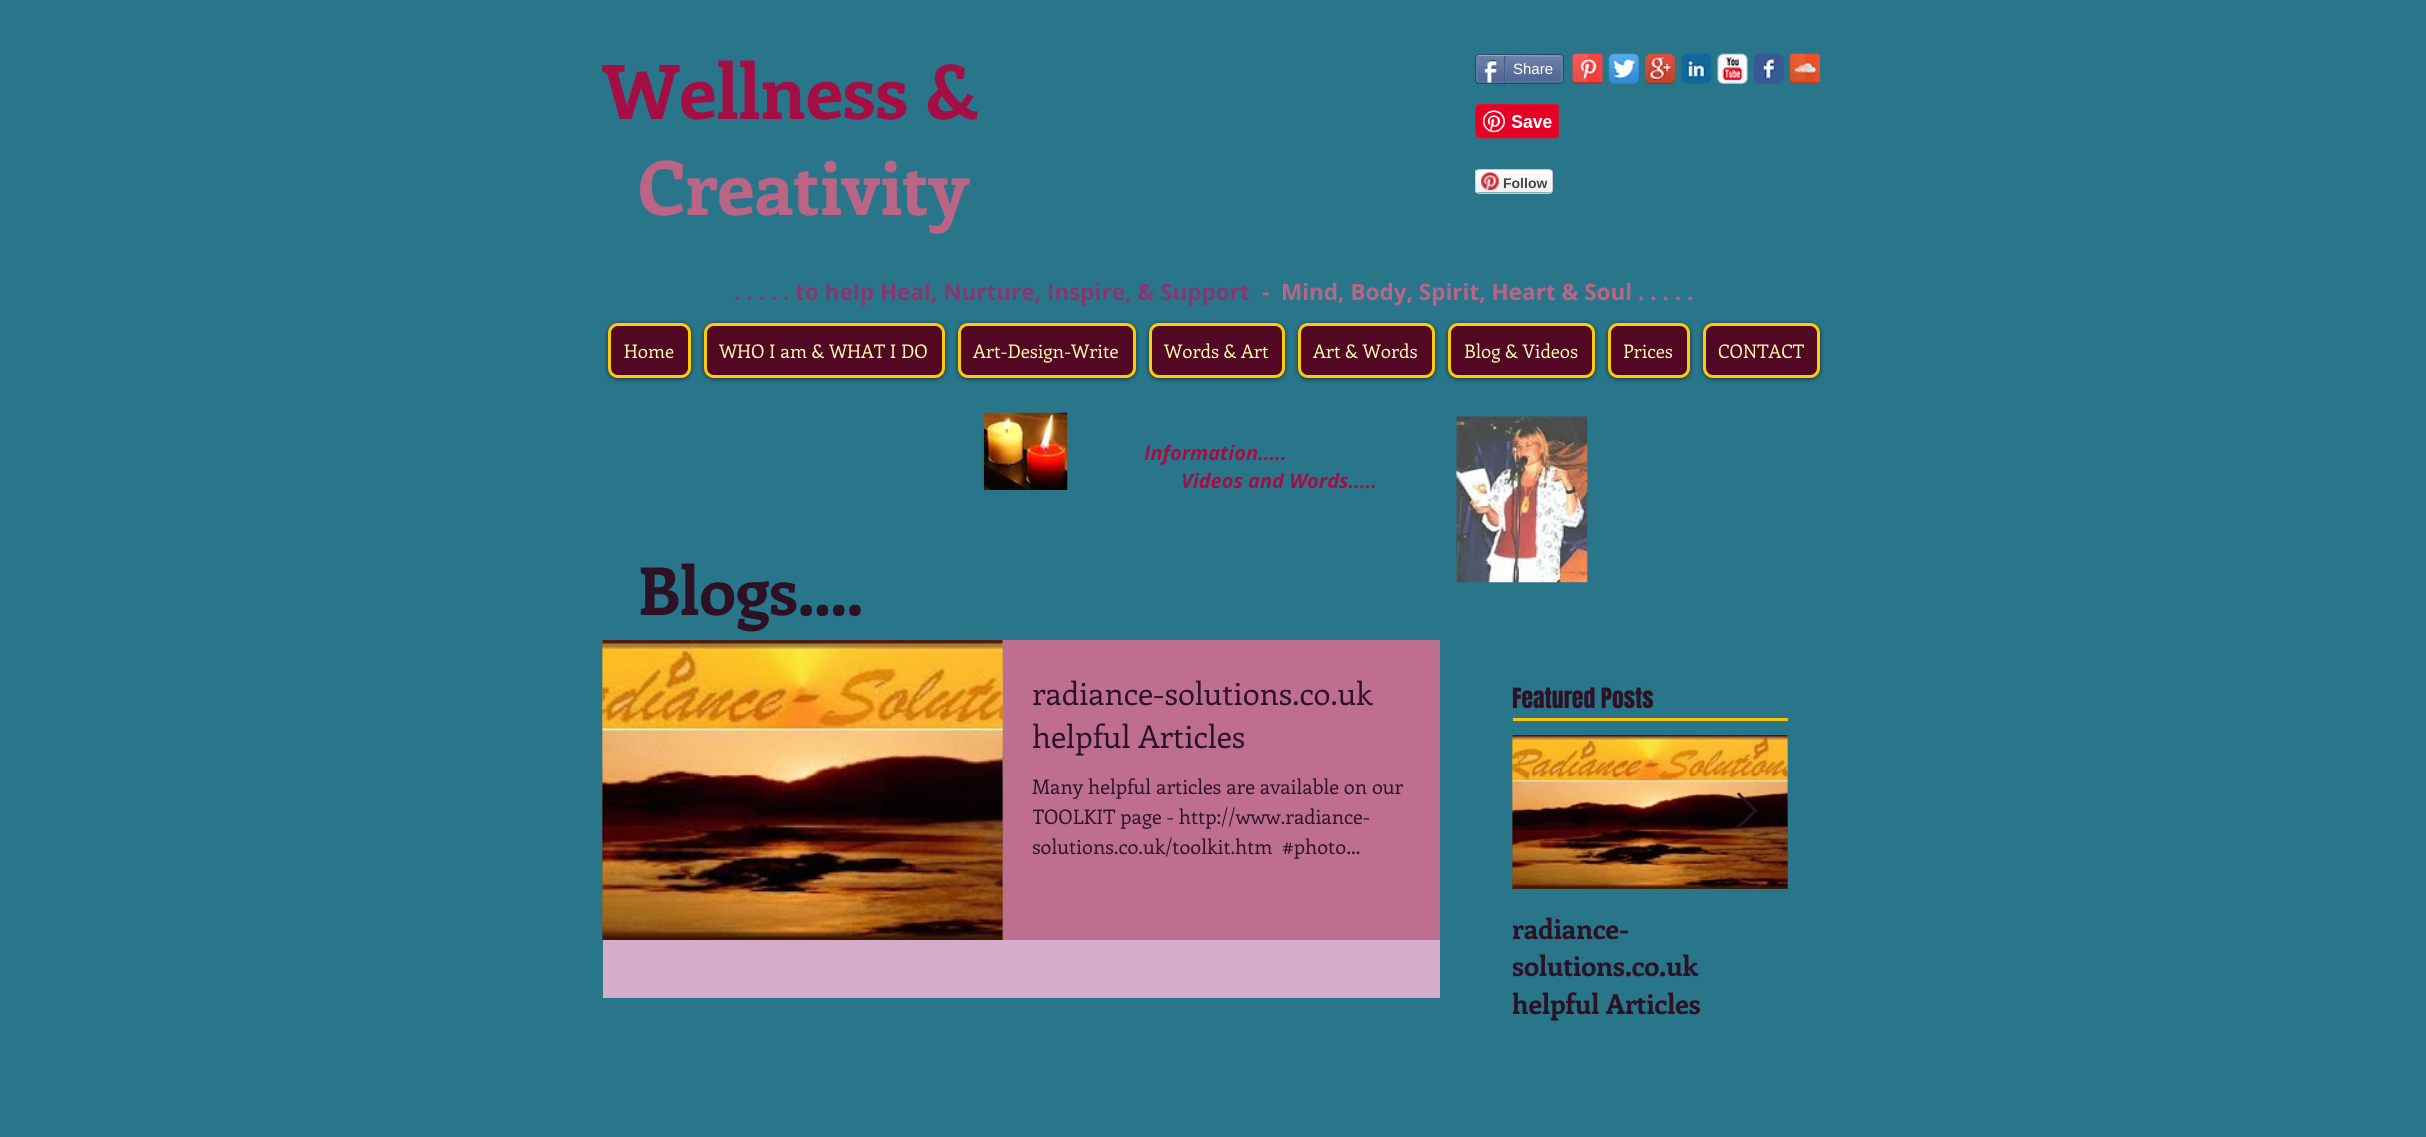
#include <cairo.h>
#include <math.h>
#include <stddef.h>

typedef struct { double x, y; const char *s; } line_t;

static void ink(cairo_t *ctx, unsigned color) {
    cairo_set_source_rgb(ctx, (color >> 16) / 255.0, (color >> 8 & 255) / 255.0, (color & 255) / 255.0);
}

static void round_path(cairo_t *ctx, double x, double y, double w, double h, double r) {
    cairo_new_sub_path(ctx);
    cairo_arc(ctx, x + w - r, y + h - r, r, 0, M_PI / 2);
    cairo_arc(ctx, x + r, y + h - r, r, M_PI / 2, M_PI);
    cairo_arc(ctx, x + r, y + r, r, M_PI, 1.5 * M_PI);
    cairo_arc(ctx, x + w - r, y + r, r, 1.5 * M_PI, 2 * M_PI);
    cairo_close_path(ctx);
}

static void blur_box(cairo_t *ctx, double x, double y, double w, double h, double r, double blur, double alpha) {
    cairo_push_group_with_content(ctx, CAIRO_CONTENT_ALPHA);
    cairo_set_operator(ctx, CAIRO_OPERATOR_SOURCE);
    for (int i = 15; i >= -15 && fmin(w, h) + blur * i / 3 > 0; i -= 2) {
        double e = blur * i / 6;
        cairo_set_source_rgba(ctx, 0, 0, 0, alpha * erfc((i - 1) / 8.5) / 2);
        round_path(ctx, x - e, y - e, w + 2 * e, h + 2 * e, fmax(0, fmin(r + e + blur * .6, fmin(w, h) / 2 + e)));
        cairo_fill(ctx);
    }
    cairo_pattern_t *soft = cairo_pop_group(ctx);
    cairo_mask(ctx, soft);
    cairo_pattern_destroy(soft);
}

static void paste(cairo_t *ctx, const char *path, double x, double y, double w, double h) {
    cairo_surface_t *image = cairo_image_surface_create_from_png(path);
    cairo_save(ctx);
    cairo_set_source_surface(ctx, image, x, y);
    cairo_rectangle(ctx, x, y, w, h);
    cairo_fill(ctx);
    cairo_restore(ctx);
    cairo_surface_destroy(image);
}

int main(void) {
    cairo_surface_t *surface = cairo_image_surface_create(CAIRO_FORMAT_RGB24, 2426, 1137);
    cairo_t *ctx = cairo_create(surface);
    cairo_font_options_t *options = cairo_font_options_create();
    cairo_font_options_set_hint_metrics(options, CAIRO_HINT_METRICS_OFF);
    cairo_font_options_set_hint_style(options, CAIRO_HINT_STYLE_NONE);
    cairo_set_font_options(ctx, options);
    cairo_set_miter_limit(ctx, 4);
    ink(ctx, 0x29768B);
    cairo_paint(ctx);
    cairo_select_font_face(ctx, "Enriqueta", CAIRO_FONT_SLANT_NORMAL, CAIRO_FONT_WEIGHT_BOLD);
    cairo_set_font_size(ctx, 75);
    ink(ctx, 0xA30F45);
    cairo_move_to(ctx, 602, 119);
    cairo_show_text(ctx, "Wellness &");
    ink(ctx, 0xBA6585);
    cairo_move_to(ctx, 638, 215);
    cairo_show_text(ctx, "Creativity");
    round_path(ctx, 1475.5, 54.5, 88, 29, 3.5);
    ink(ctx, 0x2D4565);
    cairo_set_line_width(ctx, 1);
    cairo_stroke(ctx);
    paste(ctx, "media/1.png", 1476, 56, 87, 27);
    cairo_new_path(ctx);
    cairo_move_to(ctx, 1477.5, 56);
    cairo_line_to(ctx, 1479, 55.5);
    cairo_line_to(ctx, 1561.5, 56);
    ink(ctx, 0x9AABC6);
    cairo_set_line_width(ctx, 1.2);
    cairo_stroke(ctx);
    cairo_new_path(ctx);
    cairo_move_to(ctx, 1561.5, 56);
    cairo_line_to(ctx, 1562, 57.5);
    cairo_line_to(ctx, 1562, 80);
    cairo_line_to(ctx, 1561.5, 81.5);
    ink(ctx, 0x6F83AD);
    cairo_stroke(ctx);
    cairo_new_path(ctx);
    cairo_move_to(ctx, 1561.5, 81.5);
    cairo_line_to(ctx, 1492.5, 82);
    cairo_line_to(ctx, 1479, 82);
    cairo_line_to(ctx, 1477.5, 81.5);
    ink(ctx, 0x6176A3);
    cairo_stroke(ctx);
    cairo_new_path(ctx);
    cairo_move_to(ctx, 1477.5, 81.5);
    cairo_line_to(ctx, 1477, 80);
    cairo_line_to(ctx, 1477, 57.5);
    cairo_line_to(ctx, 1477.5, 56);
    ink(ctx, 0x6F83AD);
    cairo_stroke(ctx);
    paste(ctx, "media/2.png", 1484, 60, 13, 23);
    ink(ctx, 0x425E85);
    cairo_rectangle(ctx, 1504, 56, 1, 27);
    cairo_fill(ctx);
    cairo_select_font_face(ctx, "Liberation Sans", CAIRO_FONT_SLANT_NORMAL, CAIRO_FONT_WEIGHT_NORMAL);
    cairo_set_font_size(ctx, 15);
    ink(ctx, 0xFFFFFF);
    cairo_move_to(ctx, 1513, 74);
    cairo_show_text(ctx, "Share");
    ink(ctx, 0x6176A3);
    cairo_rectangle(ctx, 1505, 56, 1, 25);
    cairo_fill(ctx);
    paste(ctx, "media/3.png", 1572, 53, 31, 31);
    paste(ctx, "media/4.png", 1608, 53, 31, 31);
    paste(ctx, "media/5.png", 1645, 53, 30, 31);
    paste(ctx, "media/6.png", 1681, 53, 31, 31);
    paste(ctx, "media/7.png", 1717, 53, 31, 31);
    paste(ctx, "media/8.png", 1753, 53, 31, 31);
    paste(ctx, "media/9.png", 1790, 53, 30, 31);
    paste(ctx, "media/10.png", 1475, 104, 84, 35);
    paste(ctx, "media/12.png", 1475, 170, 78, 23);
    round_path(ctx, 1475.5, 169.5, 77, 24, 3.5);
    ink(ctx, 0xC9C9C5);
    cairo_set_line_width(ctx, 1);
    cairo_stroke(ctx);
    paste(ctx, "media/11.png", 1481, 172, 18, 18);
    cairo_select_font_face(ctx, "Liberation Sans", CAIRO_FONT_SLANT_NORMAL, CAIRO_FONT_WEIGHT_BOLD);
    cairo_set_font_size(ctx, 14);
    ink(ctx, 0x444444);
    cairo_move_to(ctx, 1503, 188);
    cairo_show_text(ctx, "Follow");
    ink(ctx, 0x000000);
    blur_box(ctx, 608, 324, 83, 55, 10, 2.5, 0.6);
    ink(ctx, 0x520723);
    round_path(ctx, 609.5, 324.5, 80, 52, 8.5);
    cairo_fill_preserve(ctx);
    ink(ctx, 0xFFCB05);
    cairo_set_line_width(ctx, 3);
    cairo_stroke(ctx);
    cairo_select_font_face(ctx, "Enriqueta", CAIRO_FONT_SLANT_NORMAL, CAIRO_FONT_WEIGHT_NORMAL);
    cairo_set_font_size(ctx, 18.75);
    ink(ctx, 0xFCFDAE);
    cairo_move_to(ctx, 624, 358);
    cairo_show_text(ctx, "Home");
    ink(ctx, 0x000000);
    blur_box(ctx, 704, 324, 241, 55, 10, 2.5, 0.6);
    ink(ctx, 0x520723);
    round_path(ctx, 705.5, 324.5, 238, 52, 8.5);
    cairo_fill_preserve(ctx);
    ink(ctx, 0xFFCB05);
    cairo_stroke(ctx);
    ink(ctx, 0xFCFDAE);
    cairo_move_to(ctx, 719, 358);
    cairo_show_text(ctx, "WHO I am & WHAT I DO");
    ink(ctx, 0x000000);
    blur_box(ctx, 958, 324, 178, 55, 10, 2.5, 0.6);
    ink(ctx, 0x520723);
    round_path(ctx, 959.5, 324.5, 175, 52, 8.5);
    cairo_fill_preserve(ctx);
    ink(ctx, 0xFFCB05);
    cairo_stroke(ctx);
    ink(ctx, 0xFCFDAE);
    cairo_move_to(ctx, 973, 358);
    cairo_show_text(ctx, "Art-Design-Write");
    ink(ctx, 0x000000);
    blur_box(ctx, 1149, 324, 136, 55, 10, 2.5, 0.6);
    ink(ctx, 0x520723);
    round_path(ctx, 1150.5, 324.5, 133, 52, 8.5);
    cairo_fill_preserve(ctx);
    ink(ctx, 0xFFCB05);
    cairo_stroke(ctx);
    ink(ctx, 0xFCFDAE);
    cairo_move_to(ctx, 1164, 358);
    cairo_show_text(ctx, "Words & Art");
    ink(ctx, 0x000000);
    blur_box(ctx, 1298, 324, 137, 55, 10, 2.5, 0.6);
    ink(ctx, 0x520723);
    round_path(ctx, 1299.5, 324.5, 134, 52, 8.5);
    cairo_fill_preserve(ctx);
    ink(ctx, 0xFFCB05);
    cairo_stroke(ctx);
    ink(ctx, 0xFCFDAE);
    cairo_move_to(ctx, 1313, 358);
    cairo_show_text(ctx, "Art & Words");
    ink(ctx, 0x000000);
    blur_box(ctx, 1448, 324, 147, 55, 10, 2.5, 0.6);
    ink(ctx, 0x520723);
    round_path(ctx, 1449.5, 324.5, 144, 52, 8.5);
    cairo_fill_preserve(ctx);
    ink(ctx, 0xFFCB05);
    cairo_stroke(ctx);
    ink(ctx, 0xFCFDAE);
    cairo_move_to(ctx, 1464, 358);
    cairo_show_text(ctx, "Blog & Videos");
    ink(ctx, 0x000000);
    blur_box(ctx, 1608, 324, 82, 55, 10, 2.5, 0.6);
    ink(ctx, 0x520723);
    round_path(ctx, 1609.5, 324.5, 79, 52, 8.5);
    cairo_fill_preserve(ctx);
    ink(ctx, 0xFFCB05);
    cairo_stroke(ctx);
    ink(ctx, 0xFCFDAE);
    cairo_move_to(ctx, 1623, 358);
    cairo_show_text(ctx, "Prices");
    ink(ctx, 0x000000);
    blur_box(ctx, 1703, 324, 117, 55, 10, 2.5, 0.6);
    ink(ctx, 0x520723);
    round_path(ctx, 1704.5, 324.5, 114, 52, 8.5);
    cairo_fill_preserve(ctx);
    ink(ctx, 0xFFCB05);
    cairo_stroke(ctx);
    ink(ctx, 0xFCFDAE);
    cairo_move_to(ctx, 1718, 358);
    cairo_show_text(ctx, "CONTACT");
    cairo_select_font_face(ctx, "Open Sans", CAIRO_FONT_SLANT_NORMAL, CAIRO_FONT_WEIGHT_BOLD);
    cairo_set_font_size(ctx, 22.5);
    ink(ctx, 0x873670);
    cairo_move_to(ctx, 734, 300);
    cairo_show_text(ctx, ". . . . . to help Heal, Nurture, Inspire, & Support");
    ink(ctx, 0xBA6585);
    cairo_move_to(ctx, 1262, 300);
    cairo_show_text(ctx, "-  Mind, Body, Spirit, Heart & Soul . . . . .");
    paste(ctx, "media/13.png", 983, 412, 85, 78);
    cairo_select_font_face(ctx, "Open Sans", CAIRO_FONT_SLANT_ITALIC, CAIRO_FONT_WEIGHT_BOLD);
    cairo_set_font_size(ctx, 20);
    ink(ctx, 0xA30F45);
    cairo_move_to(ctx, 1144, 460);
    cairo_show_text(ctx, "Information.....");
    cairo_move_to(ctx, 1181, 488);
    cairo_show_text(ctx, "Videos and Words.....");
    paste(ctx, "media/14.png", 1456, 416, 132, 167);
    cairo_select_font_face(ctx, "Enriqueta", CAIRO_FONT_SLANT_NORMAL, CAIRO_FONT_WEIGHT_BOLD);
    cairo_set_font_size(ctx, 66);
    ink(ctx, 0x2D1225);
    cairo_move_to(ctx, 638, 615);
    cairo_show_text(ctx, "Blogs....");
    ink(ctx, 0xD7ACCB);
    cairo_rectangle(ctx, 603, 640, 837, 358);
    cairo_fill(ctx);
    paste(ctx, "media/15.png", 602, 640, 401, 300);
    paste(ctx, "media/16.png", 602, 640, 401, 300);
    ink(ctx, 0xBE6F8F);
    cairo_rectangle(ctx, 1003, 640, 437, 300);
    cairo_fill(ctx);
    cairo_select_font_face(ctx, "Enriqueta", CAIRO_FONT_SLANT_NORMAL, CAIRO_FONT_WEIGHT_NORMAL);
    cairo_set_font_size(ctx, 31.25);
    ink(ctx, 0x2D1225);
    cairo_move_to(ctx, 1032, 705);
    cairo_show_text(ctx, "radiance-solutions.co.uk");
    cairo_move_to(ctx, 1032, 748);
    cairo_show_text(ctx, "helpful Articles");
    cairo_set_font_size(ctx, 20);
    cairo_move_to(ctx, 1032, 794);
    cairo_show_text(ctx, "Many helpful articles are available on our");
    cairo_save(ctx);
    cairo_rectangle(ctx, 1033, 771, 377, 90);
    cairo_clip(ctx);
    cairo_move_to(ctx, 1032, 824);
    cairo_show_text(ctx, "TOOLKIT page - http://www.radiance-");
    cairo_move_to(ctx, 1032, 854);
    cairo_show_text(ctx, "solutions.co.uk/toolkit.htm");
    cairo_restore(ctx);
    cairo_move_to(ctx, 1282, 854);
    cairo_show_text(ctx, "#photo…");
    cairo_select_font_face(ctx, "Anton", CAIRO_FONT_SLANT_NORMAL, CAIRO_FONT_WEIGHT_NORMAL);
    cairo_set_font_size(ctx, 23.75);
    cairo_move_to(ctx, 1512, 708);
    cairo_show_text(ctx, "Featured Posts");
    ink(ctx, 0xFFC300);
    cairo_rectangle(ctx, 1513, 718, 275, 3);
    cairo_fill(ctx);
    paste(ctx, "media/17.png", 1512, 735, 276, 154);
    paste(ctx, "media/18.png", 1512, 735, 276, 154);
    cairo_set_source_rgba(ctx, 0.176, 0.071, 0.145, 0.9);
    cairo_new_path(ctx);
    cairo_move_to(ctx, 1737.5, 794);
    cairo_line_to(ctx, 1739, 793);
    cairo_line_to(ctx, 1757, 810.5);
    cairo_line_to(ctx, 1739, 828);
    cairo_line_to(ctx, 1737.5, 826.5);
    cairo_line_to(ctx, 1754, 810.5);
    cairo_close_path(ctx);
    cairo_fill_preserve(ctx);
    cairo_set_line_width(ctx, 1);
    cairo_stroke(ctx);
    cairo_save(ctx);
    cairo_rectangle(ctx, 1513, 909, 275, 112);
    cairo_clip(ctx);
    cairo_select_font_face(ctx, "Enriqueta", CAIRO_FONT_SLANT_NORMAL, CAIRO_FONT_WEIGHT_BOLD);
    cairo_set_font_size(ctx, 27.5);
    ink(ctx, 0x2D1225);
    {
        static const line_t items[] = {
            {1512, 939, "radiance-"},
            {1512, 976, "solutions.co.uk"},
            {1512, 1014, "helpful Articles"},
        };
        for (size_t i = 0; i < sizeof items / sizeof *items; i++) {
            cairo_move_to(ctx, items[i].x, items[i].y);
            cairo_show_text(ctx, items[i].s);
        }
    }
    cairo_restore(ctx);
    cairo_surface_write_to_png(surface, "image.png");
    cairo_font_options_destroy(options);
    cairo_destroy(ctx);
    cairo_surface_destroy(surface);
    return 0;
}
